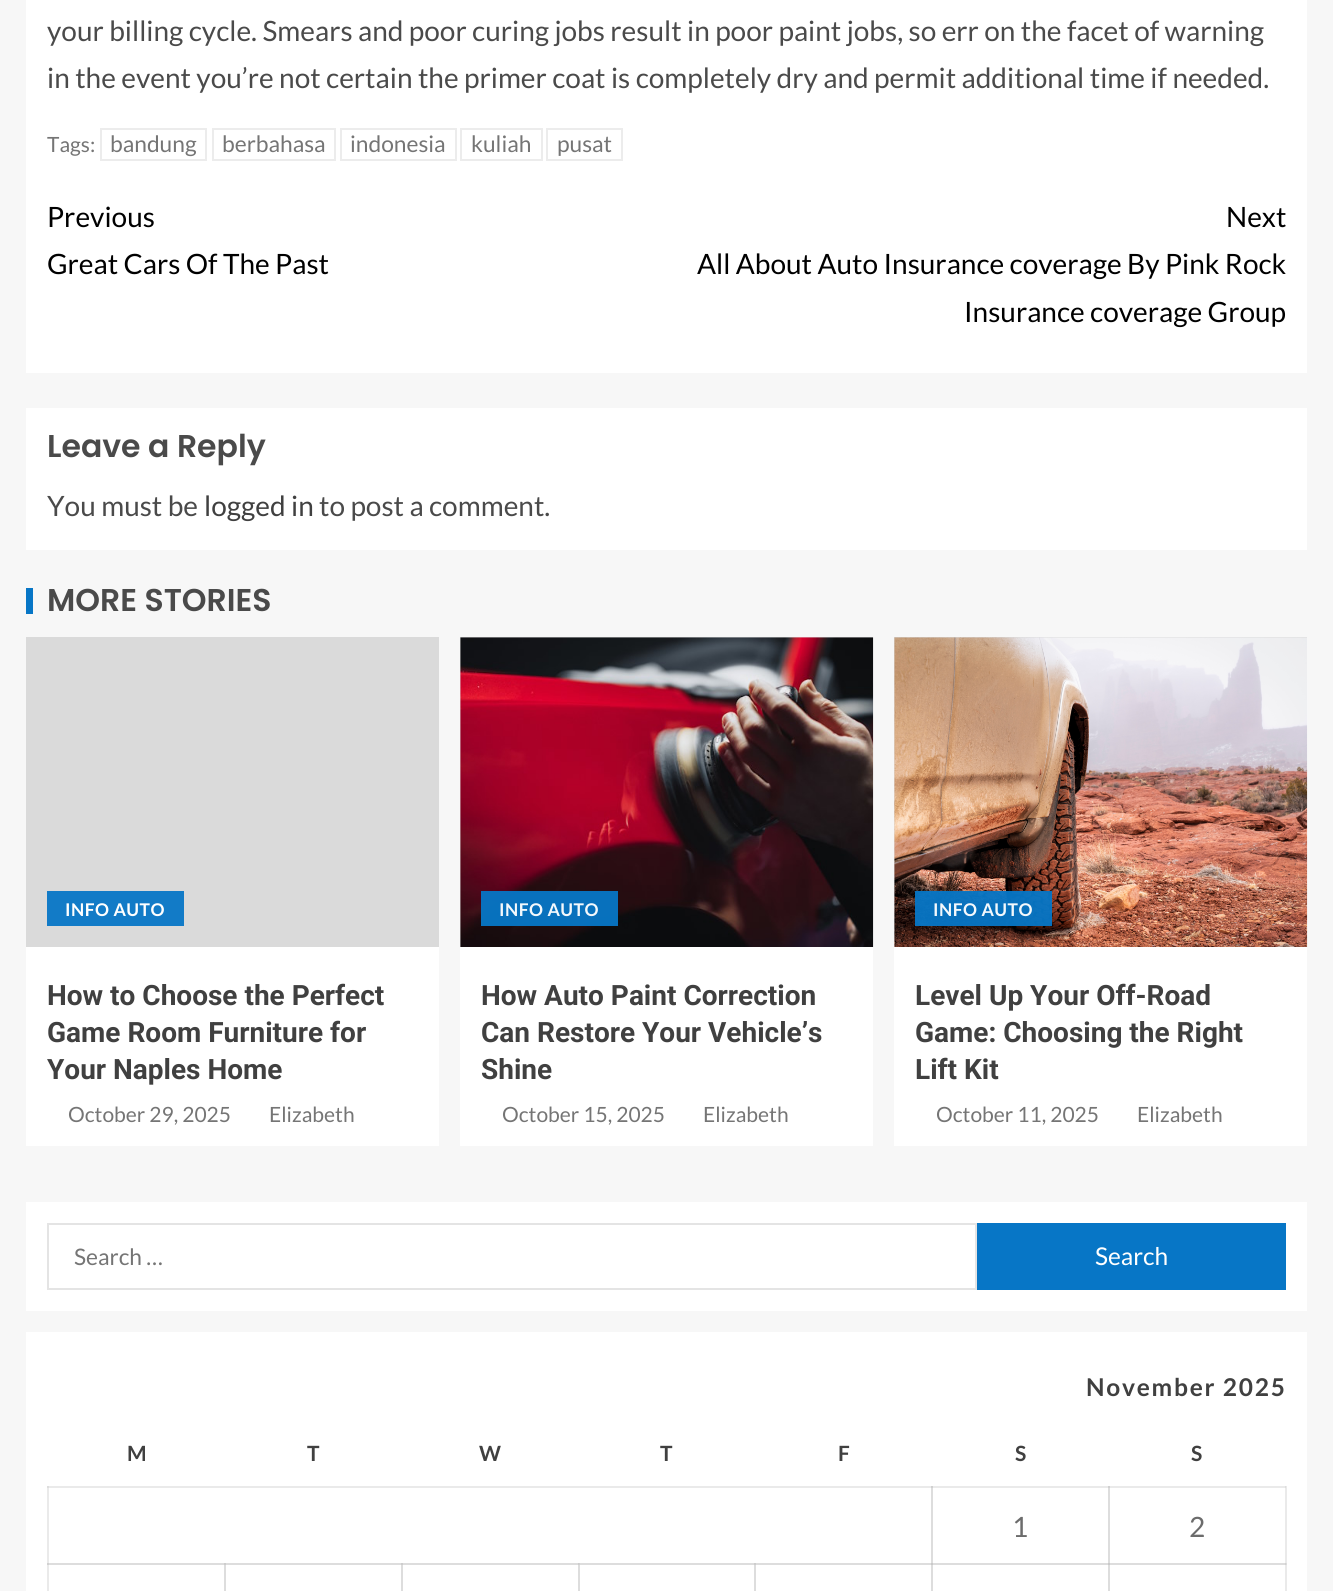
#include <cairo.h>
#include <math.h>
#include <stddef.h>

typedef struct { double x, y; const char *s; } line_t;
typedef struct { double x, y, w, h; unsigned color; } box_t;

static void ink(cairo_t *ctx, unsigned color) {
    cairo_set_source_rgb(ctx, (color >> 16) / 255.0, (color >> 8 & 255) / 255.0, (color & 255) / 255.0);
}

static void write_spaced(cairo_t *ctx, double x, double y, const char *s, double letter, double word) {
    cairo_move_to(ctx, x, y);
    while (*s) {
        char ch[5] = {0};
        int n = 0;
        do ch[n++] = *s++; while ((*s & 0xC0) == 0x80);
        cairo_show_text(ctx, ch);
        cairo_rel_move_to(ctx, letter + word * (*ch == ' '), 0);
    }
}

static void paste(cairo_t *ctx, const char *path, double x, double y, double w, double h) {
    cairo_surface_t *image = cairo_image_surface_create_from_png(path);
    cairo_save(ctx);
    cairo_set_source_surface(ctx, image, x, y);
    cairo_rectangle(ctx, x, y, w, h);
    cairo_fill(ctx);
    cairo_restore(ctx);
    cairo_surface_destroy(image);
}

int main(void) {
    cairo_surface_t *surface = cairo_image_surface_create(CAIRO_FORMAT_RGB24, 1333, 1591);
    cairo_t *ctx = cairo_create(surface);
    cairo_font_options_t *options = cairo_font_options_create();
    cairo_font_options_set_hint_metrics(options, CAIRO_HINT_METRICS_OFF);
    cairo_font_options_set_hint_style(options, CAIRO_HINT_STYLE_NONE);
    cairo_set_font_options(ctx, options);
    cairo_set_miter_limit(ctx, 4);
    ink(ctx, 0xF7F7F7);
    cairo_paint(ctx);
    ink(ctx, 0xFFFFFF);
    cairo_rectangle(ctx, 26, 0, 1281, 373);
    cairo_fill(ctx);
    cairo_select_font_face(ctx, "Lato", CAIRO_FONT_SLANT_NORMAL, CAIRO_FONT_WEIGHT_NORMAL);
    cairo_set_font_size(ctx, 28);
    ink(ctx, 0x4A4A4A);
    cairo_move_to(ctx, 47, 41);
    cairo_show_text(ctx, "your billing cycle. Smears and poor curing jobs result in poor paint jobs, so err on the facet of warning");
    cairo_move_to(ctx, 47, 88);
    cairo_show_text(ctx, "in the event you’re not certain the primer coat is completely dry and permit additional time if needed.");
    cairo_set_font_size(ctx, 21);
    ink(ctx, 0x757575);
    cairo_move_to(ctx, 47, 152);
    cairo_show_text(ctx, "Tags:");
    cairo_rectangle(ctx, 101, 129, 105, 31);
    ink(ctx, 0xECECEC);
    cairo_stroke(ctx);
    cairo_set_font_size(ctx, 22.75);
    ink(ctx, 0x757575);
    cairo_move_to(ctx, 110, 152);
    cairo_show_text(ctx, "bandung");
    cairo_rectangle(ctx, 213, 129, 122, 31);
    ink(ctx, 0xECECEC);
    cairo_stroke(ctx);
    ink(ctx, 0x757575);
    cairo_move_to(ctx, 222, 152);
    cairo_show_text(ctx, "berbahasa");
    cairo_rectangle(ctx, 341, 129, 115, 31);
    ink(ctx, 0xECECEC);
    cairo_stroke(ctx);
    ink(ctx, 0x757575);
    cairo_move_to(ctx, 350, 152);
    cairo_show_text(ctx, "indonesia");
    cairo_rectangle(ctx, 461, 129, 81, 31);
    ink(ctx, 0xECECEC);
    cairo_stroke(ctx);
    ink(ctx, 0x757575);
    cairo_move_to(ctx, 471, 152);
    cairo_show_text(ctx, "kuliah");
    cairo_rectangle(ctx, 547, 129, 75, 31);
    ink(ctx, 0xECECEC);
    cairo_stroke(ctx);
    ink(ctx, 0x757575);
    cairo_move_to(ctx, 557, 152);
    cairo_show_text(ctx, "pusat");
    cairo_set_font_size(ctx, 28);
    ink(ctx, 0x000000);
    {
        static const line_t items[] = {
            {47, 227, "Previous"},
            {47, 274, "Great Cars Of The Past"},
            {1226, 227, "Next"},
            {697, 274, "All About Auto Insurance coverage By Pink Rock"},
            {964, 322, "Insurance coverage Group"},
        };
        for (size_t i = 0; i < sizeof items / sizeof *items; i++) {
            cairo_move_to(ctx, items[i].x, items[i].y);
            cairo_show_text(ctx, items[i].s);
        }
    }
    ink(ctx, 0xFFFFFF);
    cairo_rectangle(ctx, 26, 408, 1281, 142);
    cairo_fill(ctx);
    cairo_select_font_face(ctx, "Poppins SemiBold", CAIRO_FONT_SLANT_NORMAL, CAIRO_FONT_WEIGHT_NORMAL);
    cairo_set_font_size(ctx, 31.5);
    ink(ctx, 0x4A4A4A);
    cairo_move_to(ctx, 47, 457);
    cairo_show_text(ctx, "Leave a Reply");
    cairo_select_font_face(ctx, "Lato", CAIRO_FONT_SLANT_NORMAL, CAIRO_FONT_WEIGHT_NORMAL);
    cairo_set_font_size(ctx, 28);
    cairo_move_to(ctx, 47, 516);
    cairo_show_text(ctx, "You must be");
    ink(ctx, 0x404040);
    cairo_move_to(ctx, 204, 516);
    cairo_show_text(ctx, "logged in");
    ink(ctx, 0x4A4A4A);
    cairo_move_to(ctx, 319, 516);
    cairo_show_text(ctx, "to post a comment.");
    ink(ctx, 0x0776C6);
    cairo_rectangle(ctx, 26, 588, 7, 26);
    cairo_fill(ctx);
    cairo_select_font_face(ctx, "Poppins SemiBold", CAIRO_FONT_SLANT_NORMAL, CAIRO_FONT_WEIGHT_NORMAL);
    cairo_set_font_size(ctx, 31.5);
    ink(ctx, 0x4A4A4A);
    cairo_move_to(ctx, 47, 611);
    cairo_show_text(ctx, "MORE STORIES");
    ink(ctx, 0xDADADA);
    cairo_rectangle(ctx, 26, 637, 413, 310);
    cairo_fill(ctx);
    ink(ctx, 0x127BC7);
    cairo_rectangle(ctx, 47, 891, 137, 35);
    cairo_fill(ctx);
    cairo_select_font_face(ctx, "Lato", CAIRO_FONT_SLANT_NORMAL, CAIRO_FONT_WEIGHT_BOLD);
    cairo_set_font_size(ctx, 17.5);
    ink(ctx, 0xFFFFFF);
    write_spaced(ctx, 65, 916, "INFO AUTO", 0.5, 0);
    cairo_rectangle(ctx, 26, 947, 413, 199);
    cairo_fill(ctx);
    cairo_select_font_face(ctx, "Roboto", CAIRO_FONT_SLANT_NORMAL, CAIRO_FONT_WEIGHT_BOLD);
    cairo_set_font_size(ctx, 28);
    ink(ctx, 0x404040);
    {
        static const line_t items[] = {
            {47, 1005, "How to Choose the Perfect"},
            {47, 1042, "Game Room Furniture for"},
            {47, 1079, "Your Naples Home"},
        };
        for (size_t i = 0; i < sizeof items / sizeof *items; i++) {
            cairo_move_to(ctx, items[i].x, items[i].y);
            cairo_show_text(ctx, items[i].s);
        }
    }
    cairo_select_font_face(ctx, "Lato", CAIRO_FONT_SLANT_NORMAL, CAIRO_FONT_WEIGHT_NORMAL);
    cairo_set_font_size(ctx, 21);
    ink(ctx, 0x757575);
    cairo_move_to(ctx, 68, 1122);
    cairo_show_text(ctx, "October 29, 2025");
    cairo_move_to(ctx, 269, 1122);
    cairo_show_text(ctx, "Elizabeth");
    ink(ctx, 0xDADADA);
    cairo_rectangle(ctx, 460, 637, 413, 310);
    cairo_fill(ctx);
    paste(ctx, "media/1.png", 460, 637, 414, 310);
    cairo_set_source_rgba(ctx, 0.027, 0.463, 0.776, 0.95);
    cairo_rectangle(ctx, 481, 891, 137, 35);
    cairo_fill(ctx);
    cairo_select_font_face(ctx, "Lato", CAIRO_FONT_SLANT_NORMAL, CAIRO_FONT_WEIGHT_BOLD);
    cairo_set_font_size(ctx, 17.5);
    ink(ctx, 0xF3F8FC);
    write_spaced(ctx, 499, 916, "INFO AUTO", 0.5, 0);
    ink(ctx, 0xFFFFFF);
    cairo_rectangle(ctx, 460, 947, 413, 199);
    cairo_fill(ctx);
    cairo_select_font_face(ctx, "Roboto", CAIRO_FONT_SLANT_NORMAL, CAIRO_FONT_WEIGHT_BOLD);
    cairo_set_font_size(ctx, 28);
    ink(ctx, 0x404040);
    {
        static const line_t items[] = {
            {481, 1005, "How Auto Paint Correction"},
            {481, 1042, "Can Restore Your Vehicle’s"},
            {481, 1079, "Shine"},
        };
        for (size_t i = 0; i < sizeof items / sizeof *items; i++) {
            cairo_move_to(ctx, items[i].x, items[i].y);
            cairo_show_text(ctx, items[i].s);
        }
    }
    cairo_select_font_face(ctx, "Lato", CAIRO_FONT_SLANT_NORMAL, CAIRO_FONT_WEIGHT_NORMAL);
    cairo_set_font_size(ctx, 21);
    ink(ctx, 0x757575);
    cairo_move_to(ctx, 502, 1122);
    cairo_show_text(ctx, "October 15, 2025");
    cairo_move_to(ctx, 703, 1122);
    cairo_show_text(ctx, "Elizabeth");
    ink(ctx, 0xDADADA);
    cairo_rectangle(ctx, 894, 637, 413, 310);
    cairo_fill(ctx);
    paste(ctx, "media/2.png", 894, 637, 414, 310);
    cairo_set_source_rgba(ctx, 0.027, 0.463, 0.776, 0.95);
    cairo_rectangle(ctx, 915, 891, 137, 35);
    cairo_fill(ctx);
    cairo_select_font_face(ctx, "Lato", CAIRO_FONT_SLANT_NORMAL, CAIRO_FONT_WEIGHT_BOLD);
    cairo_set_font_size(ctx, 17.5);
    ink(ctx, 0xF3F8FC);
    write_spaced(ctx, 933, 916, "INFO AUTO", 0.5, 0);
    ink(ctx, 0xFFFFFF);
    cairo_rectangle(ctx, 894, 947, 413, 199);
    cairo_fill(ctx);
    cairo_select_font_face(ctx, "Roboto", CAIRO_FONT_SLANT_NORMAL, CAIRO_FONT_WEIGHT_BOLD);
    cairo_set_font_size(ctx, 28);
    ink(ctx, 0x404040);
    {
        static const line_t items[] = {
            {915, 1005, "Level Up Your Off-Road"},
            {915, 1042, "Game: Choosing the Right"},
            {915, 1079, "Lift Kit"},
        };
        for (size_t i = 0; i < sizeof items / sizeof *items; i++) {
            cairo_move_to(ctx, items[i].x, items[i].y);
            cairo_show_text(ctx, items[i].s);
        }
    }
    cairo_select_font_face(ctx, "Lato", CAIRO_FONT_SLANT_NORMAL, CAIRO_FONT_WEIGHT_NORMAL);
    cairo_set_font_size(ctx, 21);
    ink(ctx, 0x757575);
    cairo_move_to(ctx, 936, 1122);
    cairo_show_text(ctx, "October 11, 2025");
    cairo_move_to(ctx, 1137, 1122);
    cairo_show_text(ctx, "Elizabeth");
    ink(ctx, 0xFFFFFF);
    cairo_rectangle(ctx, 26, 1202, 1281, 109);
    cairo_fill(ctx);
    cairo_rectangle(ctx, 48, 1224, 928, 65);
    ink(ctx, 0xE4E4E4);
    cairo_stroke(ctx);
    cairo_set_font_size(ctx, 22.75);
    ink(ctx, 0x757575);
    cairo_move_to(ctx, 74, 1265);
    cairo_show_text(ctx, "Search …");
    ink(ctx, 0x0776C6);
    cairo_rectangle(ctx, 977, 1223, 309, 67);
    cairo_fill(ctx);
    cairo_set_font_size(ctx, 24.5);
    ink(ctx, 0xFFFFFF);
    cairo_move_to(ctx, 1095, 1265);
    cairo_show_text(ctx, "Search");
    {
        static const box_t items[] = {
            {26, 1332, 1281, 259, 0xFFFFFF},
            {47, 1486, 2, 105, 0xEAEAEA},
            {47, 1486, 886, 2, 0xEAEAEA},
            {47, 1486, 2, 2, 0xDDDDDD},
            {931, 1486, 2, 79, 0xDDDDDD},
            {931, 1486, 179, 2, 0xEAEAEA},
            {931, 1486, 2, 2, 0xD0D0D0},
            {1108, 1486, 2, 79, 0xDDDDDD},
            {1285, 1486, 2, 105, 0xEAEAEA},
            {47, 1563, 179, 2, 0xDDDDDD},
            {47, 1563, 2, 2, 0xD1D1D1},
            {224, 1563, 2, 28, 0xDDDDDD},
            {224, 1563, 179, 2, 0xDDDDDD},
            {224, 1563, 2, 2, 0xCDCDCD},
            {401, 1563, 2, 28, 0xDDDDDD},
            {401, 1563, 178, 2, 0xDDDDDD},
            {401, 1563, 2, 2, 0xCDCDCD},
            {578, 1563, 2, 28, 0xDDDDDD},
            {578, 1563, 178, 2, 0xDDDDDD},
            {578, 1563, 2, 2, 0xD1D1D1},
            {578, 1563, 1, 2, 0xCDCDCD},
            {754, 1563, 2, 28, 0xDDDDDD},
            {754, 1563, 179, 2, 0xDDDDDD},
            {754, 1563, 2, 2, 0xCDCDCD},
            {931, 1563, 2, 28, 0xDDDDDD},
            {931, 1563, 179, 2, 0xDDDDDD},
            {931, 1563, 2, 2, 0xC9C9C9},
            {1108, 1563, 2, 28, 0xDDDDDD},
            {1108, 1563, 179, 2, 0xDDDDDD},
        };
        for (size_t i = 0; i < sizeof items / sizeof *items; i++) {
            ink(ctx, items[i].color);
            cairo_rectangle(ctx, items[i].x, items[i].y, items[i].w, items[i].h);
            cairo_fill(ctx);
        }
    }
    cairo_select_font_face(ctx, "Lato", CAIRO_FONT_SLANT_NORMAL, CAIRO_FONT_WEIGHT_BOLD);
    ink(ctx, 0x404040);
    write_spaced(ctx, 1086, 1396, "November 2025", 1.75, 0);
    cairo_set_font_size(ctx, 21);
    {
        static const line_t items[] = {
            {127, 1461, "M"},
            {307, 1461, "T"},
            {479, 1461, "W"},
            {660, 1461, "T"},
            {838, 1461, "F"},
            {1015, 1461, "S"},
            {1191, 1461, "S"},
        };
        for (size_t i = 0; i < sizeof items / sizeof *items; i++) {
            cairo_move_to(ctx, items[i].x, items[i].y);
            cairo_show_text(ctx, items[i].s);
        }
    }
    cairo_select_font_face(ctx, "Lato", CAIRO_FONT_SLANT_NORMAL, CAIRO_FONT_WEIGHT_NORMAL);
    cairo_set_font_size(ctx, 28);
    ink(ctx, 0x6C6C6C);
    cairo_move_to(ctx, 1012, 1537);
    cairo_show_text(ctx, "1");
    {
        static const box_t items[] = {
            {1108, 1486, 178, 2, 0xEAEAEA},
            {1108, 1486, 2, 2, 0xD0D0D0},
            {1285, 1486, 1, 2, 0xDDDDDD},
        };
        for (size_t i = 0; i < sizeof items / sizeof *items; i++) {
            ink(ctx, items[i].color);
            cairo_rectangle(ctx, items[i].x, items[i].y, items[i].w, items[i].h);
            cairo_fill(ctx);
        }
    }
    ink(ctx, 0x6C6C6C);
    cairo_move_to(ctx, 1189, 1537);
    cairo_show_text(ctx, "2");
    ink(ctx, 0xC9C9C9);
    cairo_rectangle(ctx, 1108, 1563, 2, 2);
    cairo_fill(ctx);
    ink(ctx, 0xD1D1D1);
    cairo_rectangle(ctx, 1285, 1563, 1, 2);
    cairo_fill(ctx);
    cairo_surface_write_to_png(surface, "image.png");
    cairo_font_options_destroy(options);
    cairo_destroy(ctx);
    cairo_surface_destroy(surface);
    return 0;
}
